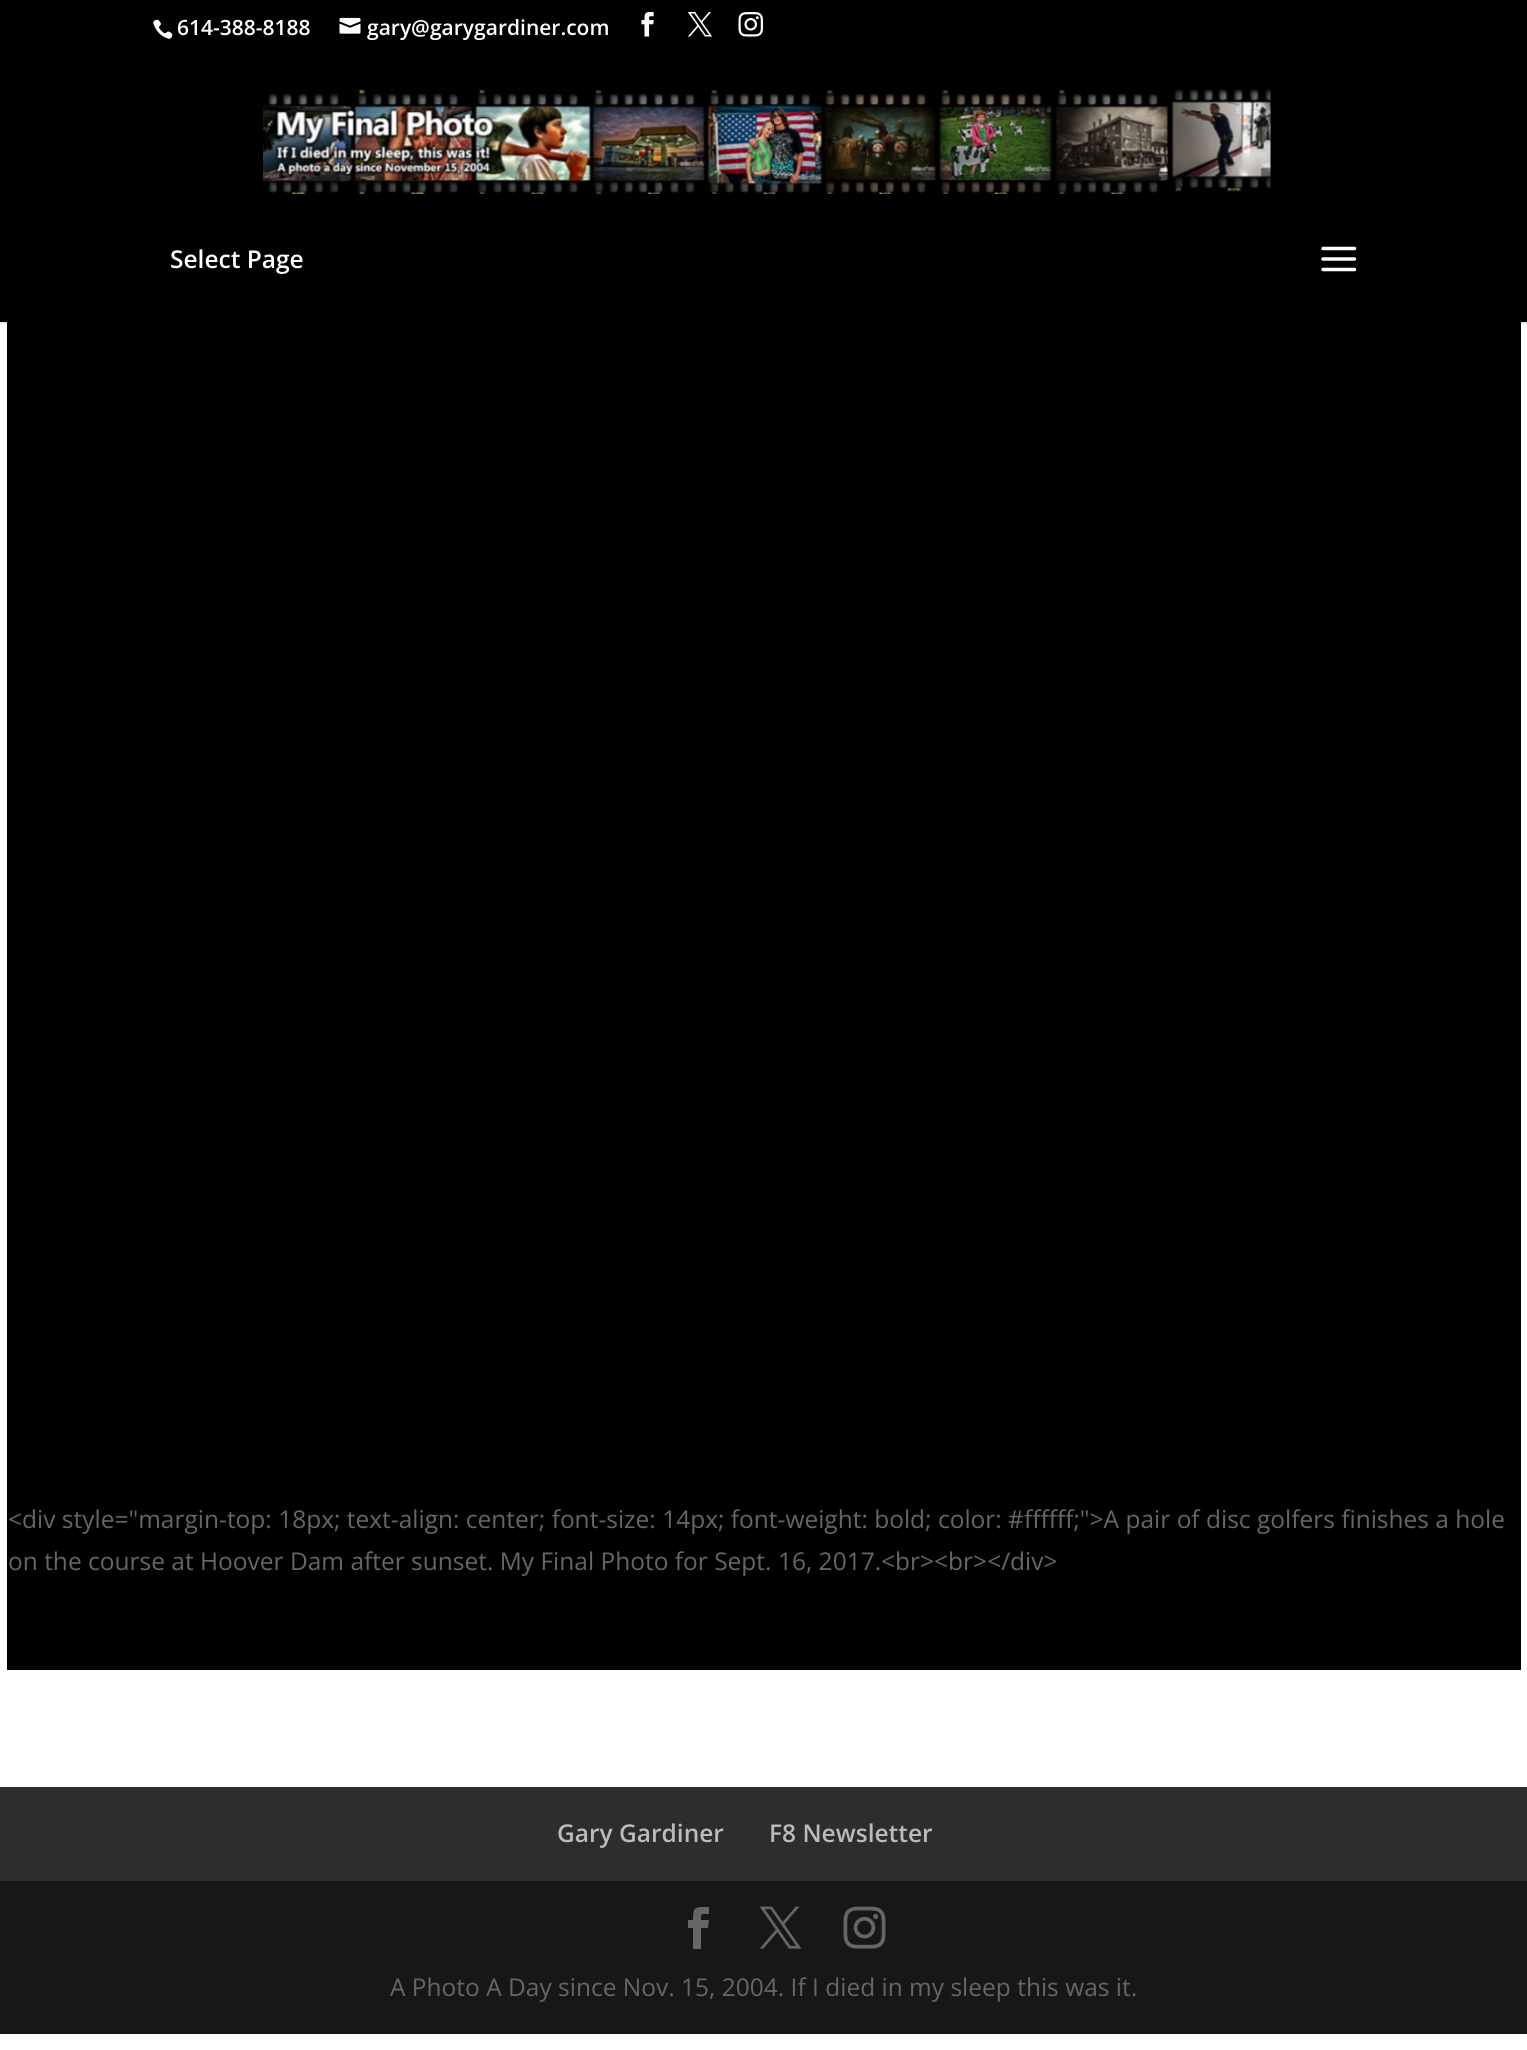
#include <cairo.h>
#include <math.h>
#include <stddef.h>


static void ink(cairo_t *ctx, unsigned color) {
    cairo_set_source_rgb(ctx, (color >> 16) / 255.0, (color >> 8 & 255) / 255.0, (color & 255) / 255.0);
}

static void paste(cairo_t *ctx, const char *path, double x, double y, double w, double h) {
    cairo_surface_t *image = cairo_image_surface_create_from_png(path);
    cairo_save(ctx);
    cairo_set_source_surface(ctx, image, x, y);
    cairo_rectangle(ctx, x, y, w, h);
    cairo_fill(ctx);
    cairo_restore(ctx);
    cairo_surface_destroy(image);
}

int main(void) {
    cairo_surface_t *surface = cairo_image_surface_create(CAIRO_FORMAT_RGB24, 1527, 2050);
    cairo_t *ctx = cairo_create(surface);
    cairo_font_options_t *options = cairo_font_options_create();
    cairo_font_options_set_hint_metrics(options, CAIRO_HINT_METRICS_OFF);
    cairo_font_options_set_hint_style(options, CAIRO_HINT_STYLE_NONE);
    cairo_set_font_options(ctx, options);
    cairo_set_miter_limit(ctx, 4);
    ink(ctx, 0xFFFFFF);
    cairo_paint(ctx);
    ink(ctx, 0x000000);
    cairo_rectangle(ctx, 0, 0, 1527, 322);
    cairo_fill(ctx);
    paste(ctx, "media/1.png", 153, 19, 20, 20);
    cairo_select_font_face(ctx, "Open Sans SemiBold", CAIRO_FONT_SLANT_NORMAL, CAIRO_FONT_WEIGHT_NORMAL);
    cairo_set_font_size(ctx, 21);
    ink(ctx, 0xFFFFFF);
    cairo_move_to(ctx, 177, 35);
    cairo_show_text(ctx, "614-388-8188");
    paste(ctx, "media/2.png", 339, 17, 22, 17);
    cairo_move_to(ctx, 367, 35);
    cairo_show_text(ctx, "gary@garygardiner.com");
    paste(ctx, "media/3.png", 641, 12, 13, 25);
    paste(ctx, "media/4.png", 687, 12, 26, 25);
    paste(ctx, "media/5.png", 738, 12, 25, 25);
    ink(ctx, 0x000000);
    cairo_rectangle(ctx, 7, 322, 1514, 1348);
    cairo_fill(ctx);
    cairo_set_source_rgba(ctx, 0, 0, 0, 0.1);
    cairo_new_path(ctx);
    cairo_move_to(ctx, 0, 322);
    cairo_line_to(ctx, 0, 324);
    cairo_line_to(ctx, 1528, 324);
    cairo_line_to(ctx, 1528, 56);
    cairo_line_to(ctx, 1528, 322);
    cairo_close_path(ctx);
    cairo_fill(ctx);
    paste(ctx, "media/6.png", 263, 89, 1008, 105);
    cairo_set_font_size(ctx, 24.5);
    ink(ctx, 0xFFFFFF);
    cairo_move_to(ctx, 170, 268);
    cairo_show_text(ctx, "Select Page");
    paste(ctx, "media/7.png", 1321, 246, 36, 26);
    cairo_select_font_face(ctx, "Open Sans", CAIRO_FONT_SLANT_NORMAL, CAIRO_FONT_WEIGHT_NORMAL);
    ink(ctx, 0x666666);
    cairo_move_to(ctx, 8, 1528);
    cairo_show_text(ctx, "<div style=\"margin-top: 18px; text-align: center; font-size: 14px; font-weight: bold; color: #ffffff;\">A pair of disc golfers finishes a hole");
    cairo_move_to(ctx, 8, 1570);
    cairo_show_text(ctx, "on the course at Hoover Dam after sunset. My Final Photo for Sept. 16, 2017.<br><br></div>");
    ink(ctx, 0x2D2D2D);
    cairo_rectangle(ctx, 0, 1787, 1527, 94);
    cairo_fill(ctx);
    cairo_select_font_face(ctx, "Open Sans SemiBold", CAIRO_FONT_SLANT_NORMAL, CAIRO_FONT_WEIGHT_NORMAL);
    ink(ctx, 0xBBBBBB);
    cairo_move_to(ctx, 557, 1842);
    cairo_show_text(ctx, "Gary Gardiner");
    cairo_move_to(ctx, 769, 1842);
    cairo_show_text(ctx, "F8 Newsletter");
    ink(ctx, 0x171717);
    cairo_rectangle(ctx, 0, 1881, 1527, 153);
    cairo_fill(ctx);
    ink(ctx, 0x666666);
    cairo_new_path(ctx);
    cairo_move_to(ctx, 693, 1949);
    cairo_line_to(ctx, 701, 1949);
    cairo_line_to(ctx, 701, 1928);
    cairo_line_to(ctx, 708, 1928);
    cairo_line_to(ctx, 709, 1920);
    cairo_line_to(ctx, 701, 1920);
    cairo_curve_to(ctx, 701, 1913, 701, 1914, 709, 1914);
    cairo_line_to(ctx, 709, 1907);
    cairo_curve_to(ctx, 695, 1907, 693, 1906, 693, 1920);
    cairo_line_to(ctx, 688, 1920);
    cairo_line_to(ctx, 688, 1928);
    cairo_line_to(ctx, 693, 1928);
    cairo_close_path(ctx);
    cairo_fill(ctx);
    paste(ctx, "media/8.png", 759, 1906, 43, 43);
    paste(ctx, "media/9.png", 843, 1906, 43, 43);
    cairo_select_font_face(ctx, "Open Sans", CAIRO_FONT_SLANT_NORMAL, CAIRO_FONT_WEIGHT_NORMAL);
    cairo_move_to(ctx, 390, 1996);
    cairo_show_text(ctx, "A Photo A Day since Nov. 15, 2004. If I died in my sleep this was it.");
    cairo_surface_write_to_png(surface, "image.png");
    cairo_font_options_destroy(options);
    cairo_destroy(ctx);
    cairo_surface_destroy(surface);
    return 0;
}
